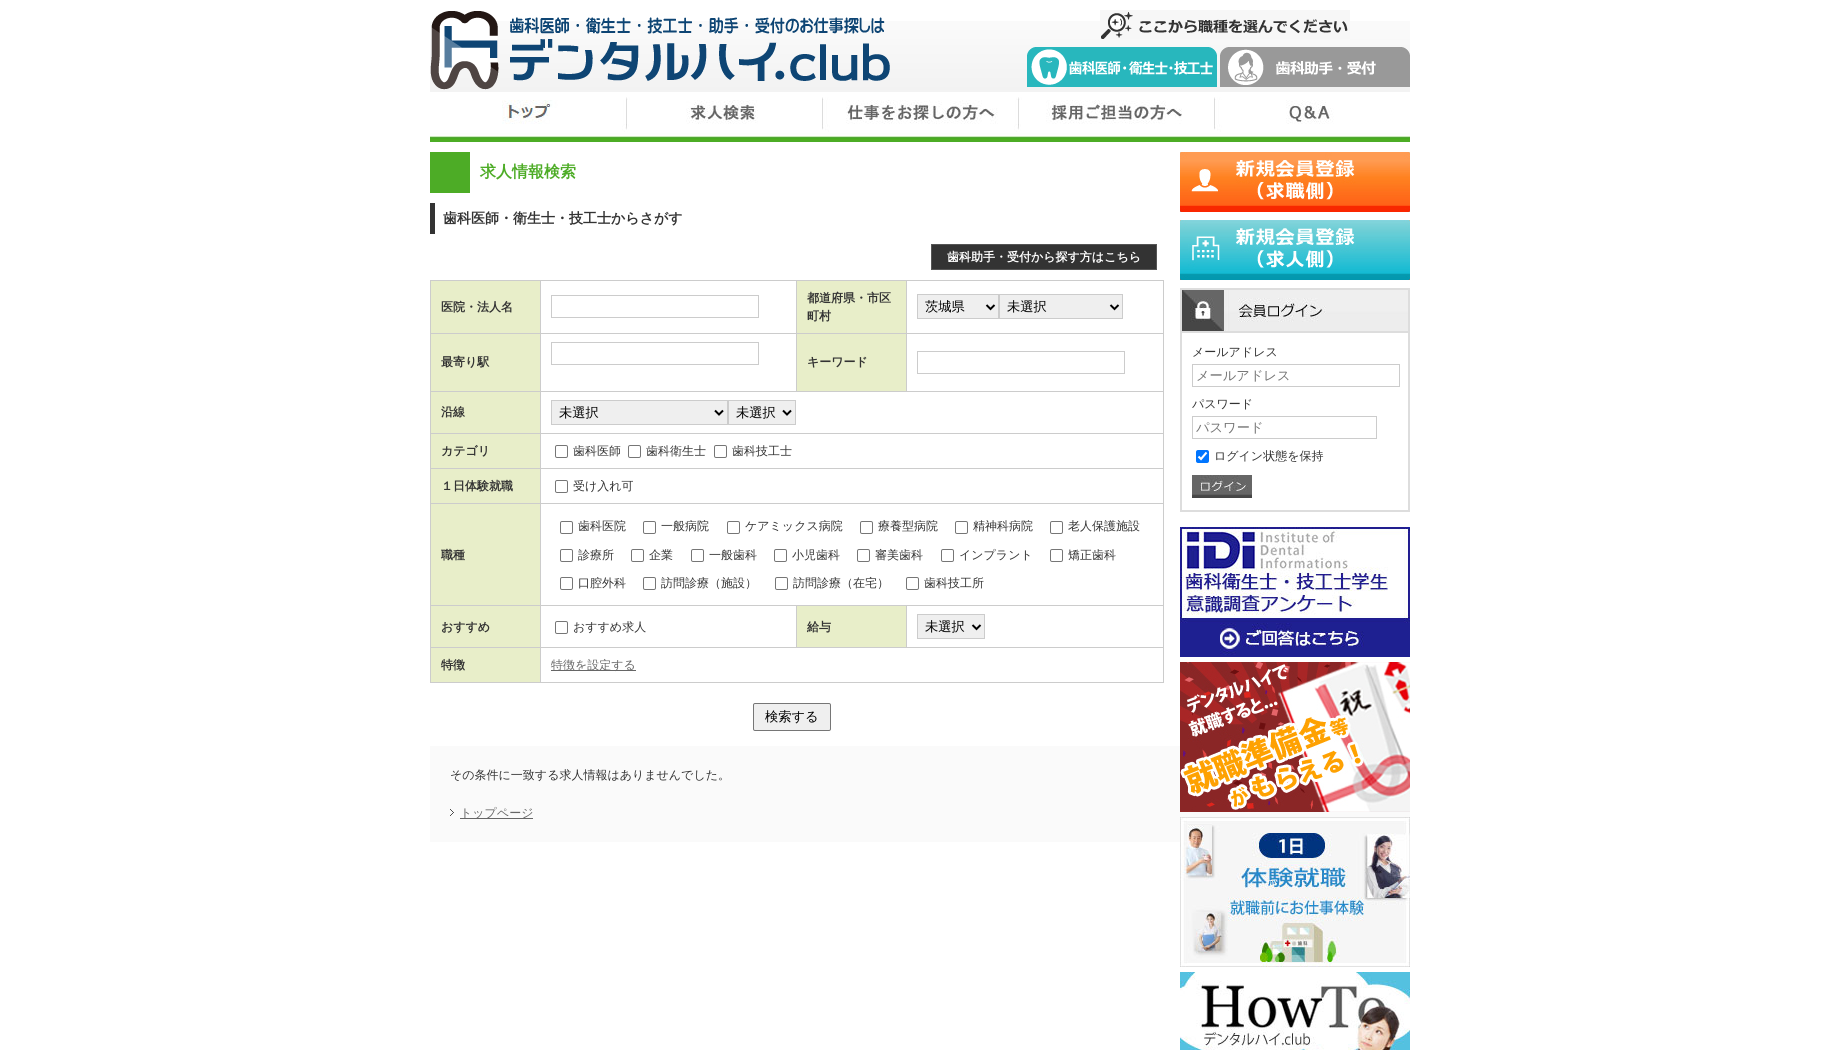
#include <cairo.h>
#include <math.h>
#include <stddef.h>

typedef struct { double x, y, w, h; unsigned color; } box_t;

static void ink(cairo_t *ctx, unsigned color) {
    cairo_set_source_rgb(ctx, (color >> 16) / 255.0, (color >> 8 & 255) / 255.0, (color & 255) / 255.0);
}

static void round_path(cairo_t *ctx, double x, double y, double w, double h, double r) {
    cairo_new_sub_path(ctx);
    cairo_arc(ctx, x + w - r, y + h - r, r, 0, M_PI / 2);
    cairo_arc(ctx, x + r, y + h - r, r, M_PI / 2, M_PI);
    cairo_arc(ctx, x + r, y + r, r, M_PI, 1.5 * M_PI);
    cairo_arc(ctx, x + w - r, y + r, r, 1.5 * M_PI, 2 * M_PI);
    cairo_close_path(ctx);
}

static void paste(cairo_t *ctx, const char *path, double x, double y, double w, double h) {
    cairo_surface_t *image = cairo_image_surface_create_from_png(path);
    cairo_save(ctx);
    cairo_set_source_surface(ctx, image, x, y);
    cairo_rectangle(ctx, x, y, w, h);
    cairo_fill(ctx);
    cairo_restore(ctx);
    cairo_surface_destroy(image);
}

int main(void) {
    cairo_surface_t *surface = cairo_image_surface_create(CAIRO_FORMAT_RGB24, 1840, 1050);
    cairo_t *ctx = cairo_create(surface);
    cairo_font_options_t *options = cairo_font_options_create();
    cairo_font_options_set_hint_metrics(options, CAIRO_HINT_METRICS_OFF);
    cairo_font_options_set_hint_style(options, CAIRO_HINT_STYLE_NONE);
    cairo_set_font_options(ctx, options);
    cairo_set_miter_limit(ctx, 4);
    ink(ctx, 0xFFFFFF);
    cairo_paint(ctx);
    paste(ctx, "media/1.png", 430, 21, 980, 71);
    paste(ctx, "media/2.png", 430, 11, 460, 79);
    paste(ctx, "media/3.png", 1100, 10, 250, 29);
    paste(ctx, "media/4.png", 1027, 47, 190, 40);
    paste(ctx, "media/5.png", 1220, 47, 190, 40);
    paste(ctx, "media/6.png", 430, 100, 196, 42);
    paste(ctx, "media/7.png", 626, 97, 196, 45);
    paste(ctx, "media/8.png", 822, 97, 196, 45);
    paste(ctx, "media/9.png", 1018, 97, 196, 45);
    paste(ctx, "media/10.png", 1214, 97, 196, 45);
    ink(ctx, 0x4DAC26);
    cairo_rectangle(ctx, 430, 152, 40, 41);
    cairo_fill(ctx);
    cairo_select_font_face(ctx, "WenQuanYi Zen Hei", CAIRO_FONT_SLANT_NORMAL, CAIRO_FONT_WEIGHT_BOLD);
    cairo_set_font_size(ctx, 16);
    cairo_move_to(ctx, 480, 177);
    cairo_show_text(ctx, "求人情報検索");
    ink(ctx, 0x333333);
    cairo_rectangle(ctx, 430, 203, 5, 31);
    cairo_fill(ctx);
    cairo_set_font_size(ctx, 14);
    cairo_move_to(ctx, 443, 223);
    cairo_show_text(ctx, "歯科医師・衛生士・技工士からさがす");
    cairo_rectangle(ctx, 931.5, 244.5, 225, 25);
    cairo_fill_preserve(ctx);
    ink(ctx, 0x555555);
    cairo_set_line_width(ctx, 1);
    cairo_stroke(ctx);
    cairo_set_font_size(ctx, 12);
    ink(ctx, 0xFFFFFF);
    cairo_move_to(ctx, 947, 261);
    cairo_show_text(ctx, "歯科助手・受付から探す方はこちら");
    {
        static const box_t items[] = {
            {431, 281, 109, 52, 0xE8EEC9},
            {906, 280, 258, 1, 0xCCCCCC},
            {906, 333, 258, 1, 0xCCCCCC},
            {540, 391, 624, 1, 0xCCCCCC},
            {906, 333, 1, 59, 0xCCCCCC},
            {796, 333, 111, 1, 0xCCCCCC},
            {906, 280, 1, 54, 0xCCCCCC},
            {796, 280, 111, 1, 0xCCCCCC},
            {796, 333, 1, 59, 0xCCCCCC},
            {540, 333, 257, 1, 0xCCCCCC},
            {796, 280, 1, 54, 0xCCCCCC},
            {540, 280, 257, 1, 0xCCCCCC},
            {540, 433, 624, 1, 0xCCCCCC},
            {540, 468, 624, 1, 0xCCCCCC},
            {540, 503, 624, 1, 0xCCCCCC},
            {906, 605, 258, 1, 0xCCCCCC},
            {540, 647, 624, 1, 0xCCCCCC},
            {906, 605, 1, 43, 0xCCCCCC},
            {796, 605, 111, 1, 0xCCCCCC},
            {796, 605, 1, 43, 0xCCCCCC},
            {540, 605, 257, 1, 0xCCCCCC},
            {1163, 647, 1, 36, 0xCCCCCC},
            {540, 682, 624, 1, 0xCCCCCC},
            {540, 647, 1, 36, 0xCCCCCC},
            {430, 647, 111, 1, 0xCCCCCC},
            {540, 605, 1, 43, 0xCCCCCC},
            {430, 605, 111, 1, 0xCCCCCC},
            {540, 503, 1, 103, 0xCCCCCC},
            {430, 503, 111, 1, 0xCCCCCC},
            {540, 468, 1, 36, 0xCCCCCC},
            {430, 468, 111, 1, 0xCCCCCC},
            {540, 433, 1, 36, 0xCCCCCC},
            {430, 433, 111, 1, 0xCCCCCC},
            {540, 391, 1, 43, 0xCCCCCC},
            {430, 391, 111, 1, 0xCCCCCC},
            {540, 333, 1, 59, 0xCCCCCC},
            {430, 333, 111, 1, 0xCCCCCC},
            {540, 280, 1, 54, 0xCCCCCC},
            {430, 280, 111, 1, 0xCCCCCC},
            {430, 682, 111, 1, 0xCCCCCC},
            {430, 647, 1, 36, 0xCCCCCC},
            {430, 605, 1, 43, 0xCCCCCC},
            {430, 503, 1, 103, 0xCCCCCC},
            {430, 468, 1, 36, 0xCCCCCC},
            {430, 433, 1, 36, 0xCCCCCC},
            {430, 391, 1, 43, 0xCCCCCC},
            {430, 333, 1, 59, 0xCCCCCC},
            {430, 280, 1, 54, 0xCCCCCC},
        };
        for (size_t i = 0; i < sizeof items / sizeof *items; i++) {
            ink(ctx, items[i].color);
            cairo_rectangle(ctx, items[i].x, items[i].y, items[i].w, items[i].h);
            cairo_fill(ctx);
        }
    }
    ink(ctx, 0x333333);
    cairo_move_to(ctx, 441, 311);
    cairo_show_text(ctx, "医院・法人名");
    cairo_rectangle(ctx, 551.5, 295.5, 207, 22);
    ink(ctx, 0xCCCCCC);
    cairo_stroke(ctx);
    ink(ctx, 0xE8EEC9);
    cairo_rectangle(ctx, 797, 281, 109, 52);
    cairo_fill(ctx);
    ink(ctx, 0x333333);
    cairo_move_to(ctx, 807, 302);
    cairo_show_text(ctx, "都道府県・市区");
    cairo_move_to(ctx, 807, 320);
    cairo_show_text(ctx, "町村");
    {
        static const box_t items[] = {
            {1163, 605, 1, 43, 0xCCCCCC},
            {1163, 503, 1, 103, 0xCCCCCC},
            {1163, 468, 1, 36, 0xCCCCCC},
            {1163, 433, 1, 36, 0xCCCCCC},
            {1163, 391, 1, 43, 0xCCCCCC},
            {1163, 333, 1, 59, 0xCCCCCC},
            {1163, 280, 1, 54, 0xCCCCCC},
        };
        for (size_t i = 0; i < sizeof items / sizeof *items; i++) {
            ink(ctx, items[i].color);
            cairo_rectangle(ctx, items[i].x, items[i].y, items[i].w, items[i].h);
            cairo_fill(ctx);
        }
    }
    ink(ctx, 0xEFEFEF);
    cairo_rectangle(ctx, 917.5, 294.5, 81, 24);
    cairo_fill_preserve(ctx);
    ink(ctx, 0xCCCCCC);
    cairo_stroke(ctx);
    cairo_new_path(ctx);
    cairo_move_to(ctx, 986.5, 305);
    cairo_line_to(ctx, 990.5, 309);
    cairo_line_to(ctx, 994.5, 305);
    ink(ctx, 0x000000);
    cairo_set_line_width(ctx, 2);
    cairo_stroke(ctx);
    cairo_select_font_face(ctx, "WenQuanYi Zen Hei Medium", CAIRO_FONT_SLANT_NORMAL, CAIRO_FONT_WEIGHT_NORMAL);
    cairo_set_font_size(ctx, 13.25);
    cairo_move_to(ctx, 925, 311);
    cairo_show_text(ctx, "茨城県");
    ink(ctx, 0xEFEFEF);
    cairo_rectangle(ctx, 999.5, 294.5, 123, 24);
    cairo_fill_preserve(ctx);
    ink(ctx, 0xCCCCCC);
    cairo_set_line_width(ctx, 1);
    cairo_stroke(ctx);
    cairo_new_path(ctx);
    cairo_move_to(ctx, 1110.5, 305);
    cairo_line_to(ctx, 1114.5, 309);
    cairo_line_to(ctx, 1118.5, 305);
    ink(ctx, 0x000000);
    cairo_set_line_width(ctx, 2);
    cairo_stroke(ctx);
    cairo_move_to(ctx, 1007, 311);
    cairo_show_text(ctx, "未選択");
    ink(ctx, 0xE8EEC9);
    cairo_rectangle(ctx, 431, 334, 109, 57);
    cairo_fill(ctx);
    cairo_select_font_face(ctx, "WenQuanYi Zen Hei", CAIRO_FONT_SLANT_NORMAL, CAIRO_FONT_WEIGHT_BOLD);
    cairo_set_font_size(ctx, 12);
    ink(ctx, 0x333333);
    cairo_move_to(ctx, 441, 366);
    cairo_show_text(ctx, "最寄り駅");
    cairo_rectangle(ctx, 551.5, 342.5, 207, 22);
    ink(ctx, 0xCCCCCC);
    cairo_set_line_width(ctx, 1);
    cairo_stroke(ctx);
    ink(ctx, 0xE8EEC9);
    cairo_rectangle(ctx, 797, 334, 109, 57);
    cairo_fill(ctx);
    ink(ctx, 0x333333);
    cairo_move_to(ctx, 807, 366);
    cairo_show_text(ctx, "キーワード");
    cairo_rectangle(ctx, 917.5, 351.5, 207, 22);
    ink(ctx, 0xCCCCCC);
    cairo_stroke(ctx);
    ink(ctx, 0xE8EEC9);
    cairo_rectangle(ctx, 431, 392, 109, 41);
    cairo_fill(ctx);
    ink(ctx, 0x333333);
    cairo_move_to(ctx, 441, 416);
    cairo_show_text(ctx, "沿線");
    ink(ctx, 0xEFEFEF);
    cairo_rectangle(ctx, 551.5, 400.5, 176, 24);
    cairo_fill_preserve(ctx);
    ink(ctx, 0xCCCCCC);
    cairo_stroke(ctx);
    cairo_new_path(ctx);
    cairo_move_to(ctx, 715, 410.5);
    cairo_line_to(ctx, 719, 414.5);
    cairo_line_to(ctx, 723, 410.5);
    ink(ctx, 0x000000);
    cairo_set_line_width(ctx, 2);
    cairo_stroke(ctx);
    cairo_select_font_face(ctx, "WenQuanYi Zen Hei Medium", CAIRO_FONT_SLANT_NORMAL, CAIRO_FONT_WEIGHT_NORMAL);
    cairo_set_font_size(ctx, 13.25);
    cairo_move_to(ctx, 559, 417);
    cairo_show_text(ctx, "未選択");
    ink(ctx, 0xEFEFEF);
    cairo_rectangle(ctx, 728.5, 400.5, 67, 24);
    cairo_fill_preserve(ctx);
    ink(ctx, 0xCCCCCC);
    cairo_set_line_width(ctx, 1);
    cairo_stroke(ctx);
    cairo_new_path(ctx);
    cairo_move_to(ctx, 783, 410.5);
    cairo_line_to(ctx, 787, 414.5);
    cairo_line_to(ctx, 791, 410.5);
    ink(ctx, 0x000000);
    cairo_set_line_width(ctx, 2);
    cairo_stroke(ctx);
    cairo_move_to(ctx, 736, 417);
    cairo_show_text(ctx, "未選択");
    ink(ctx, 0xE8EEC9);
    cairo_rectangle(ctx, 431, 434, 109, 34);
    cairo_fill(ctx);
    cairo_select_font_face(ctx, "WenQuanYi Zen Hei", CAIRO_FONT_SLANT_NORMAL, CAIRO_FONT_WEIGHT_BOLD);
    cairo_set_font_size(ctx, 12);
    ink(ctx, 0x333333);
    cairo_move_to(ctx, 441, 455);
    cairo_show_text(ctx, "カテゴリ");
    round_path(ctx, 555.5, 445.5, 12, 12, 1.5);
    ink(ctx, 0x767676);
    cairo_set_line_width(ctx, 1);
    cairo_stroke(ctx);
    cairo_select_font_face(ctx, "WenQuanYi Zen Hei Medium", CAIRO_FONT_SLANT_NORMAL, CAIRO_FONT_WEIGHT_NORMAL);
    ink(ctx, 0x333333);
    cairo_move_to(ctx, 573, 455);
    cairo_show_text(ctx, "歯科医師");
    round_path(ctx, 628.5, 445.5, 12, 12, 1.5);
    ink(ctx, 0x767676);
    cairo_stroke(ctx);
    ink(ctx, 0x333333);
    cairo_move_to(ctx, 646, 455);
    cairo_show_text(ctx, "歯科衛生士");
    round_path(ctx, 714.5, 445.5, 12, 12, 1.5);
    ink(ctx, 0x767676);
    cairo_stroke(ctx);
    ink(ctx, 0x333333);
    cairo_move_to(ctx, 732, 455);
    cairo_show_text(ctx, "歯科技工士");
    ink(ctx, 0xE8EEC9);
    cairo_rectangle(ctx, 431, 469, 109, 34);
    cairo_fill(ctx);
    cairo_select_font_face(ctx, "WenQuanYi Zen Hei", CAIRO_FONT_SLANT_NORMAL, CAIRO_FONT_WEIGHT_BOLD);
    ink(ctx, 0x333333);
    cairo_move_to(ctx, 441, 490);
    cairo_show_text(ctx, "１日体験就職");
    round_path(ctx, 555.5, 480.5, 12, 12, 1.5);
    ink(ctx, 0x767676);
    cairo_stroke(ctx);
    cairo_select_font_face(ctx, "WenQuanYi Zen Hei Medium", CAIRO_FONT_SLANT_NORMAL, CAIRO_FONT_WEIGHT_NORMAL);
    ink(ctx, 0x333333);
    cairo_move_to(ctx, 573, 490);
    cairo_show_text(ctx, "受け入れ可");
    ink(ctx, 0xE8EEC9);
    cairo_rectangle(ctx, 431, 504, 109, 101);
    cairo_fill(ctx);
    cairo_select_font_face(ctx, "WenQuanYi Zen Hei", CAIRO_FONT_SLANT_NORMAL, CAIRO_FONT_WEIGHT_BOLD);
    ink(ctx, 0x333333);
    cairo_move_to(ctx, 441, 559);
    cairo_show_text(ctx, "職種");
    round_path(ctx, 560.5, 521.5, 12, 12, 1.5);
    ink(ctx, 0x767676);
    cairo_stroke(ctx);
    cairo_select_font_face(ctx, "WenQuanYi Zen Hei Medium", CAIRO_FONT_SLANT_NORMAL, CAIRO_FONT_WEIGHT_NORMAL);
    ink(ctx, 0x333333);
    cairo_move_to(ctx, 578, 530);
    cairo_show_text(ctx, "歯科医院");
    round_path(ctx, 643.5, 521.5, 12, 12, 1.5);
    ink(ctx, 0x767676);
    cairo_stroke(ctx);
    ink(ctx, 0x333333);
    cairo_move_to(ctx, 661, 530);
    cairo_show_text(ctx, "一般病院");
    round_path(ctx, 727.5, 521.5, 12, 12, 1.5);
    ink(ctx, 0x767676);
    cairo_stroke(ctx);
    ink(ctx, 0x333333);
    cairo_move_to(ctx, 745, 530);
    cairo_show_text(ctx, "ケアミックス病院");
    round_path(ctx, 860.5, 521.5, 12, 12, 1.5);
    ink(ctx, 0x767676);
    cairo_stroke(ctx);
    ink(ctx, 0x333333);
    cairo_move_to(ctx, 878, 530);
    cairo_show_text(ctx, "療養型病院");
    round_path(ctx, 955.5, 521.5, 12, 12, 1.5);
    ink(ctx, 0x767676);
    cairo_stroke(ctx);
    ink(ctx, 0x333333);
    cairo_move_to(ctx, 973, 530);
    cairo_show_text(ctx, "精神科病院");
    round_path(ctx, 1050.5, 521.5, 12, 12, 1.5);
    ink(ctx, 0x767676);
    cairo_stroke(ctx);
    ink(ctx, 0x333333);
    cairo_move_to(ctx, 1068, 530);
    cairo_show_text(ctx, "老人保護施設");
    round_path(ctx, 560.5, 549.5, 12, 12, 1.5);
    ink(ctx, 0x767676);
    cairo_stroke(ctx);
    ink(ctx, 0x333333);
    cairo_move_to(ctx, 578, 559);
    cairo_show_text(ctx, "診療所");
    round_path(ctx, 631.5, 549.5, 12, 12, 1.5);
    ink(ctx, 0x767676);
    cairo_stroke(ctx);
    ink(ctx, 0x333333);
    cairo_move_to(ctx, 649, 559);
    cairo_show_text(ctx, "企業");
    round_path(ctx, 691.5, 549.5, 12, 12, 1.5);
    ink(ctx, 0x767676);
    cairo_stroke(ctx);
    ink(ctx, 0x333333);
    cairo_move_to(ctx, 709, 559);
    cairo_show_text(ctx, "一般歯科");
    round_path(ctx, 774.5, 549.5, 12, 12, 1.5);
    ink(ctx, 0x767676);
    cairo_stroke(ctx);
    ink(ctx, 0x333333);
    cairo_move_to(ctx, 792, 559);
    cairo_show_text(ctx, "小児歯科");
    round_path(ctx, 857.5, 549.5, 12, 12, 1.5);
    ink(ctx, 0x767676);
    cairo_stroke(ctx);
    ink(ctx, 0x333333);
    cairo_move_to(ctx, 875, 559);
    cairo_show_text(ctx, "審美歯科");
    round_path(ctx, 941.5, 549.5, 12, 12, 1.5);
    ink(ctx, 0x767676);
    cairo_stroke(ctx);
    ink(ctx, 0x333333);
    cairo_move_to(ctx, 959, 559);
    cairo_show_text(ctx, "インプラント");
    round_path(ctx, 1050.5, 549.5, 12, 12, 1.5);
    ink(ctx, 0x767676);
    cairo_stroke(ctx);
    ink(ctx, 0x333333);
    cairo_move_to(ctx, 1068, 559);
    cairo_show_text(ctx, "矯正歯科");
    round_path(ctx, 560.5, 577.5, 12, 12, 1.5);
    ink(ctx, 0x767676);
    cairo_stroke(ctx);
    ink(ctx, 0x333333);
    cairo_move_to(ctx, 578, 587);
    cairo_show_text(ctx, "口腔外科");
    round_path(ctx, 643.5, 577.5, 12, 12, 1.5);
    ink(ctx, 0x767676);
    cairo_stroke(ctx);
    ink(ctx, 0x333333);
    cairo_move_to(ctx, 661, 587);
    cairo_show_text(ctx, "訪問診療（施設）");
    round_path(ctx, 775.5, 577.5, 12, 12, 1.5);
    ink(ctx, 0x767676);
    cairo_stroke(ctx);
    ink(ctx, 0x333333);
    cairo_move_to(ctx, 793, 587);
    cairo_show_text(ctx, "訪問診療（在宅）");
    round_path(ctx, 906.5, 577.5, 12, 12, 1.5);
    ink(ctx, 0x767676);
    cairo_stroke(ctx);
    ink(ctx, 0x333333);
    cairo_move_to(ctx, 924, 587);
    cairo_show_text(ctx, "歯科技工所");
    ink(ctx, 0xE8EEC9);
    cairo_rectangle(ctx, 431, 606, 109, 41);
    cairo_fill(ctx);
    cairo_select_font_face(ctx, "WenQuanYi Zen Hei", CAIRO_FONT_SLANT_NORMAL, CAIRO_FONT_WEIGHT_BOLD);
    ink(ctx, 0x333333);
    cairo_move_to(ctx, 441, 631);
    cairo_show_text(ctx, "おすすめ");
    round_path(ctx, 555.5, 621.5, 12, 12, 1.5);
    ink(ctx, 0x767676);
    cairo_stroke(ctx);
    cairo_select_font_face(ctx, "WenQuanYi Zen Hei Medium", CAIRO_FONT_SLANT_NORMAL, CAIRO_FONT_WEIGHT_NORMAL);
    ink(ctx, 0x333333);
    cairo_move_to(ctx, 573, 631);
    cairo_show_text(ctx, "おすすめ求人");
    ink(ctx, 0xE8EEC9);
    cairo_rectangle(ctx, 797, 606, 109, 41);
    cairo_fill(ctx);
    cairo_select_font_face(ctx, "WenQuanYi Zen Hei", CAIRO_FONT_SLANT_NORMAL, CAIRO_FONT_WEIGHT_BOLD);
    ink(ctx, 0x333333);
    cairo_move_to(ctx, 807, 631);
    cairo_show_text(ctx, "給与");
    ink(ctx, 0xEFEFEF);
    cairo_rectangle(ctx, 917.5, 614.5, 67, 24);
    cairo_fill_preserve(ctx);
    ink(ctx, 0xCCCCCC);
    cairo_stroke(ctx);
    cairo_new_path(ctx);
    cairo_move_to(ctx, 972.5, 625);
    cairo_line_to(ctx, 976.5, 629);
    cairo_line_to(ctx, 980.5, 625);
    ink(ctx, 0x000000);
    cairo_set_line_width(ctx, 2);
    cairo_stroke(ctx);
    cairo_select_font_face(ctx, "WenQuanYi Zen Hei Medium", CAIRO_FONT_SLANT_NORMAL, CAIRO_FONT_WEIGHT_NORMAL);
    cairo_set_font_size(ctx, 13.25);
    cairo_move_to(ctx, 925, 631);
    cairo_show_text(ctx, "未選択");
    ink(ctx, 0xE8EEC9);
    cairo_rectangle(ctx, 431, 648, 109, 34);
    cairo_fill(ctx);
    cairo_select_font_face(ctx, "WenQuanYi Zen Hei", CAIRO_FONT_SLANT_NORMAL, CAIRO_FONT_WEIGHT_BOLD);
    cairo_set_font_size(ctx, 12);
    ink(ctx, 0x333333);
    cairo_move_to(ctx, 441, 669);
    cairo_show_text(ctx, "特徴");
    ink(ctx, 0x666666);
    cairo_rectangle(ctx, 551, 670, 85, 1);
    cairo_fill(ctx);
    cairo_select_font_face(ctx, "WenQuanYi Zen Hei Medium", CAIRO_FONT_SLANT_NORMAL, CAIRO_FONT_WEIGHT_NORMAL);
    cairo_move_to(ctx, 551, 669);
    cairo_show_text(ctx, "特徴を設定する");
    ink(ctx, 0xEFEFEF);
    round_path(ctx, 753.5, 703.5, 77, 27, 1.5);
    cairo_fill_preserve(ctx);
    ink(ctx, 0x767676);
    cairo_set_line_width(ctx, 1);
    cairo_stroke(ctx);
    cairo_set_font_size(ctx, 13.25);
    ink(ctx, 0x000000);
    cairo_move_to(ctx, 765, 721);
    cairo_show_text(ctx, "検索する");
    ink(ctx, 0xFAFAFA);
    cairo_rectangle(ctx, 430, 746, 980, 96);
    cairo_fill(ctx);
    cairo_set_font_size(ctx, 12);
    ink(ctx, 0x333333);
    cairo_move_to(ctx, 450, 779);
    cairo_show_text(ctx, "その条件に一致する求人情報はありませんでした。");
    paste(ctx, "media/11.png", 450, 809, 4, 7);
    ink(ctx, 0x666666);
    cairo_rectangle(ctx, 460, 818, 73, 1);
    cairo_fill(ctx);
    cairo_move_to(ctx, 460, 817);
    cairo_show_text(ctx, "トップページ");
    paste(ctx, "media/12.png", 1180, 152, 230, 60);
    paste(ctx, "media/13.png", 1180, 220, 230, 60);
    paste(ctx, "media/14.png", 1182, 290, 226, 41);
    cairo_rectangle(ctx, 1181, 289, 228, 43);
    ink(ctx, 0xDDDDDD);
    cairo_set_line_width(ctx, 2);
    cairo_stroke(ctx);
    {
        static const box_t items[] = {
            {1408, 333, 2, 179, 0xDDDDDD},
            {1180, 510, 230, 2, 0xDDDDDD},
            {1180, 333, 2, 179, 0xDDDDDD},
        };
        for (size_t i = 0; i < sizeof items / sizeof *items; i++) {
            ink(ctx, items[i].color);
            cairo_rectangle(ctx, items[i].x, items[i].y, items[i].w, items[i].h);
            cairo_fill(ctx);
        }
    }
    ink(ctx, 0x333333);
    cairo_move_to(ctx, 1192, 356);
    cairo_show_text(ctx, "メールアドレス");
    cairo_rectangle(ctx, 1192.5, 364.5, 207, 22);
    ink(ctx, 0xCCCCCC);
    cairo_set_line_width(ctx, 1);
    cairo_stroke(ctx);
    cairo_set_font_size(ctx, 13.25);
    ink(ctx, 0x757575);
    cairo_move_to(ctx, 1196, 380);
    cairo_show_text(ctx, "メールアドレス");
    cairo_set_font_size(ctx, 12);
    ink(ctx, 0x333333);
    cairo_move_to(ctx, 1192, 408);
    cairo_show_text(ctx, "パスワード");
    cairo_rectangle(ctx, 1192.5, 416.5, 184, 22);
    ink(ctx, 0xCCCCCC);
    cairo_stroke(ctx);
    cairo_set_font_size(ctx, 13.25);
    ink(ctx, 0x757575);
    cairo_move_to(ctx, 1196, 432);
    cairo_show_text(ctx, "パスワード");
    ink(ctx, 0x0075FF);
    round_path(ctx, 1196, 450, 13, 13, 2);
    cairo_fill(ctx);
    cairo_new_path(ctx);
    cairo_move_to(ctx, 1198.5, 456.5);
    cairo_line_to(ctx, 1201, 459);
    cairo_line_to(ctx, 1206.5, 452.5);
    ink(ctx, 0xFFFFFF);
    cairo_set_line_width(ctx, 2.1);
    cairo_stroke(ctx);
    cairo_set_font_size(ctx, 12);
    ink(ctx, 0x333333);
    cairo_move_to(ctx, 1214, 460);
    cairo_show_text(ctx, "ログイン状態を保持");
    paste(ctx, "media/15.png", 1192, 475, 60, 23);
    paste(ctx, "media/16.png", 1180, 527, 230, 130);
    paste(ctx, "media/17.png", 1180, 662, 230, 150);
    paste(ctx, "media/18.png", 1180, 817, 230, 150);
    paste(ctx, "media/19.png", 1180, 972, 230, 78);
    cairo_surface_write_to_png(surface, "image.png");
    cairo_font_options_destroy(options);
    cairo_destroy(ctx);
    cairo_surface_destroy(surface);
    return 0;
}
